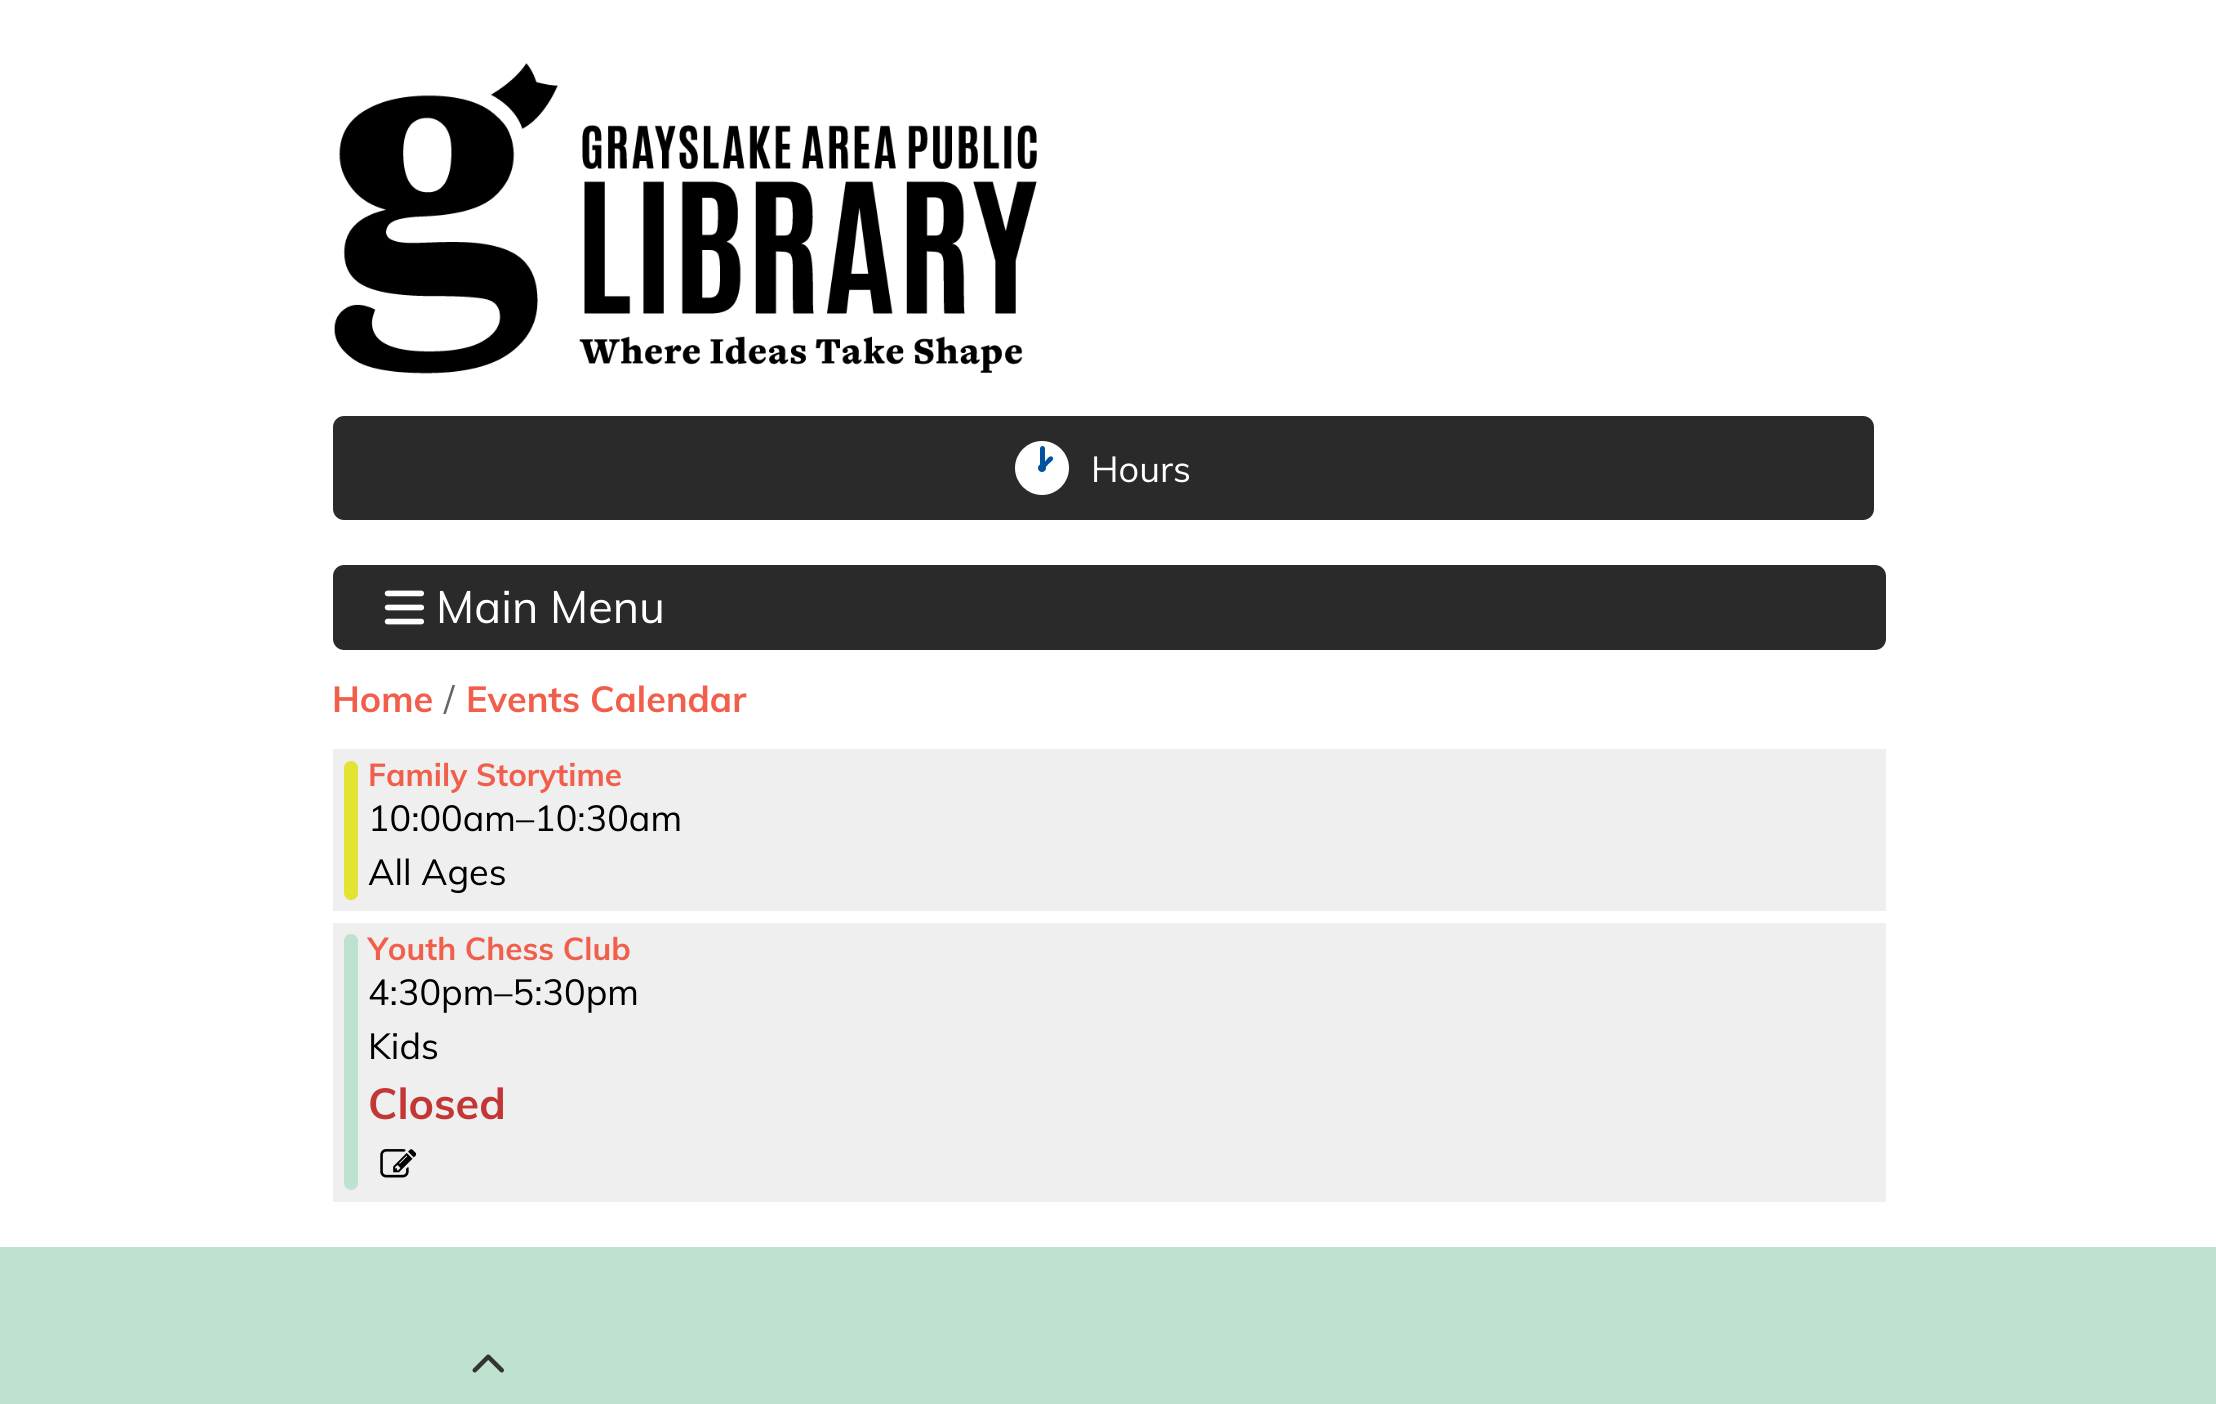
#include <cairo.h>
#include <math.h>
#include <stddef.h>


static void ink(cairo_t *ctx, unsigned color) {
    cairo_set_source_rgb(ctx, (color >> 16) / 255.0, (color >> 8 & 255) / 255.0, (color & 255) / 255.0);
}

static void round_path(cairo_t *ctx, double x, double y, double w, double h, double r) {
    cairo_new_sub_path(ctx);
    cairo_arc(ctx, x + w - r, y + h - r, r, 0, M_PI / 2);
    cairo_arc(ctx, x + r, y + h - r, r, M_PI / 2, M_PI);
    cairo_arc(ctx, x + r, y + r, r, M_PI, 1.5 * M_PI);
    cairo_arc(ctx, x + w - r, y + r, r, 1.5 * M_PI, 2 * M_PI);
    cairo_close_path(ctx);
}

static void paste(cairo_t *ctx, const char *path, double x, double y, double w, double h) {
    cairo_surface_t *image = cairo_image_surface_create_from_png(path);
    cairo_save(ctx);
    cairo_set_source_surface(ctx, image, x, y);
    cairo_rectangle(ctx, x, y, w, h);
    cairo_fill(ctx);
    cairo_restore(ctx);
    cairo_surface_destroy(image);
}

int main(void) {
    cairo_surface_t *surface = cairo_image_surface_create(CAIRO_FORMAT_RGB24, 2216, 1404);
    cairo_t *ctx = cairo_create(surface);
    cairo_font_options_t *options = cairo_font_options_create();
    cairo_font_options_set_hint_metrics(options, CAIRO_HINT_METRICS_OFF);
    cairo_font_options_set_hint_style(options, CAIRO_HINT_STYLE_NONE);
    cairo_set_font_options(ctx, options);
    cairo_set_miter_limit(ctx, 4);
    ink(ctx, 0xFFFFFF);
    cairo_paint(ctx);
    paste(ctx, "media/1.png", 334, 63, 703, 311);
    ink(ctx, 0x2A2A2B);
    round_path(ctx, 334, 417, 1539, 102, 10);
    cairo_fill_preserve(ctx);
    cairo_stroke(ctx);
    ink(ctx, 0x00549F);
    cairo_arc(ctx, 1042, 468, 15.5, 0, 2 * M_PI);
    cairo_fill_preserve(ctx);
    ink(ctx, 0xFFFFFF);
    cairo_set_line_width(ctx, 23);
    cairo_stroke(ctx);
    ink(ctx, 0x00549F);
    round_path(ctx, 1040, 446, 5, 22, 2.5);
    cairo_fill(ctx);
    cairo_new_path(ctx);
    cairo_move_to(ctx, 1052.5, 457);
    cairo_curve_to(ctx, 1055, 459.5, 1050, 462.5, 1048.5, 464);
    cairo_curve_to(ctx, 1047, 465.5, 1043.5, 470.5, 1041.5, 468);
    cairo_curve_to(ctx, 1039, 465.5, 1044, 462, 1045.5, 461);
    cairo_curve_to(ctx, 1046.5, 459.5, 1050, 454.5, 1052.5, 457);
    cairo_close_path(ctx);
    cairo_fill(ctx);
    cairo_select_font_face(ctx, "Muli", CAIRO_FONT_SLANT_NORMAL, CAIRO_FONT_WEIGHT_NORMAL);
    cairo_set_font_size(ctx, 36);
    ink(ctx, 0xFFFFFF);
    cairo_move_to(ctx, 1091, 482);
    cairo_show_text(ctx, "Hours");
    ink(ctx, 0x2A2A2B);
    round_path(ctx, 333, 565, 1553, 85, 11);
    cairo_fill(ctx);
    paste(ctx, "media/2.png", 384, 590, 41, 35);
    cairo_set_font_size(ctx, 45);
    ink(ctx, 0xFFFFFF);
    cairo_move_to(ctx, 436, 623);
    cairo_show_text(ctx, "Main Menu");
    cairo_select_font_face(ctx, "Muli", CAIRO_FONT_SLANT_NORMAL, CAIRO_FONT_WEIGHT_BOLD);
    cairo_set_font_size(ctx, 36);
    ink(ctx, 0xF15F4C);
    cairo_move_to(ctx, 332, 712);
    cairo_show_text(ctx, "Home");
    cairo_select_font_face(ctx, "Muli", CAIRO_FONT_SLANT_NORMAL, CAIRO_FONT_WEIGHT_NORMAL);
    ink(ctx, 0x666666);
    cairo_move_to(ctx, 444, 712);
    cairo_show_text(ctx, "/");
    cairo_select_font_face(ctx, "Muli", CAIRO_FONT_SLANT_NORMAL, CAIRO_FONT_WEIGHT_BOLD);
    ink(ctx, 0xF15F4C);
    cairo_move_to(ctx, 466, 712);
    cairo_show_text(ctx, "Events Calendar");
    ink(ctx, 0xEFEFEF);
    cairo_rectangle(ctx, 333, 749, 1553, 162);
    cairo_fill(ctx);
    ink(ctx, 0xE3E334);
    round_path(ctx, 344, 761, 14, 139, 7);
    cairo_fill(ctx);
    cairo_set_font_size(ctx, 31.5);
    ink(ctx, 0xF15F4C);
    cairo_move_to(ctx, 368, 786);
    cairo_show_text(ctx, "Family Storytime");
    cairo_select_font_face(ctx, "Muli", CAIRO_FONT_SLANT_NORMAL, CAIRO_FONT_WEIGHT_NORMAL);
    cairo_set_font_size(ctx, 36);
    ink(ctx, 0x000000);
    cairo_move_to(ctx, 368, 831);
    cairo_show_text(ctx, "10:00am–10:30am");
    cairo_move_to(ctx, 368, 885);
    cairo_show_text(ctx, "All Ages");
    ink(ctx, 0xEFEFEF);
    cairo_rectangle(ctx, 333, 923, 1553, 279);
    cairo_fill(ctx);
    ink(ctx, 0xBEE2D0);
    round_path(ctx, 344, 934, 14, 256, 7);
    cairo_fill(ctx);
    cairo_select_font_face(ctx, "Muli", CAIRO_FONT_SLANT_NORMAL, CAIRO_FONT_WEIGHT_BOLD);
    cairo_set_font_size(ctx, 31.5);
    ink(ctx, 0xF15F4C);
    cairo_move_to(ctx, 368, 960);
    cairo_show_text(ctx, "Youth Chess Club");
    cairo_select_font_face(ctx, "Muli", CAIRO_FONT_SLANT_NORMAL, CAIRO_FONT_WEIGHT_NORMAL);
    cairo_set_font_size(ctx, 36);
    ink(ctx, 0x000000);
    cairo_move_to(ctx, 368, 1005);
    cairo_show_text(ctx, "4:30pm–5:30pm");
    cairo_move_to(ctx, 368, 1059);
    cairo_show_text(ctx, "Kids");
    cairo_select_font_face(ctx, "Muli", CAIRO_FONT_SLANT_NORMAL, CAIRO_FONT_WEIGHT_BOLD);
    cairo_set_font_size(ctx, 43);
    ink(ctx, 0xC23736);
    cairo_move_to(ctx, 368, 1119);
    cairo_show_text(ctx, "Closed");
    paste(ctx, "media/3.png", 380, 1149, 36, 29);
    ink(ctx, 0xBEE2D0);
    cairo_rectangle(ctx, 0, 1247, 2216, 157);
    cairo_fill(ctx);
    paste(ctx, "media/4.png", 472, 1354, 32, 19);
    cairo_surface_write_to_png(surface, "image.png");
    cairo_font_options_destroy(options);
    cairo_destroy(ctx);
    cairo_surface_destroy(surface);
    return 0;
}
